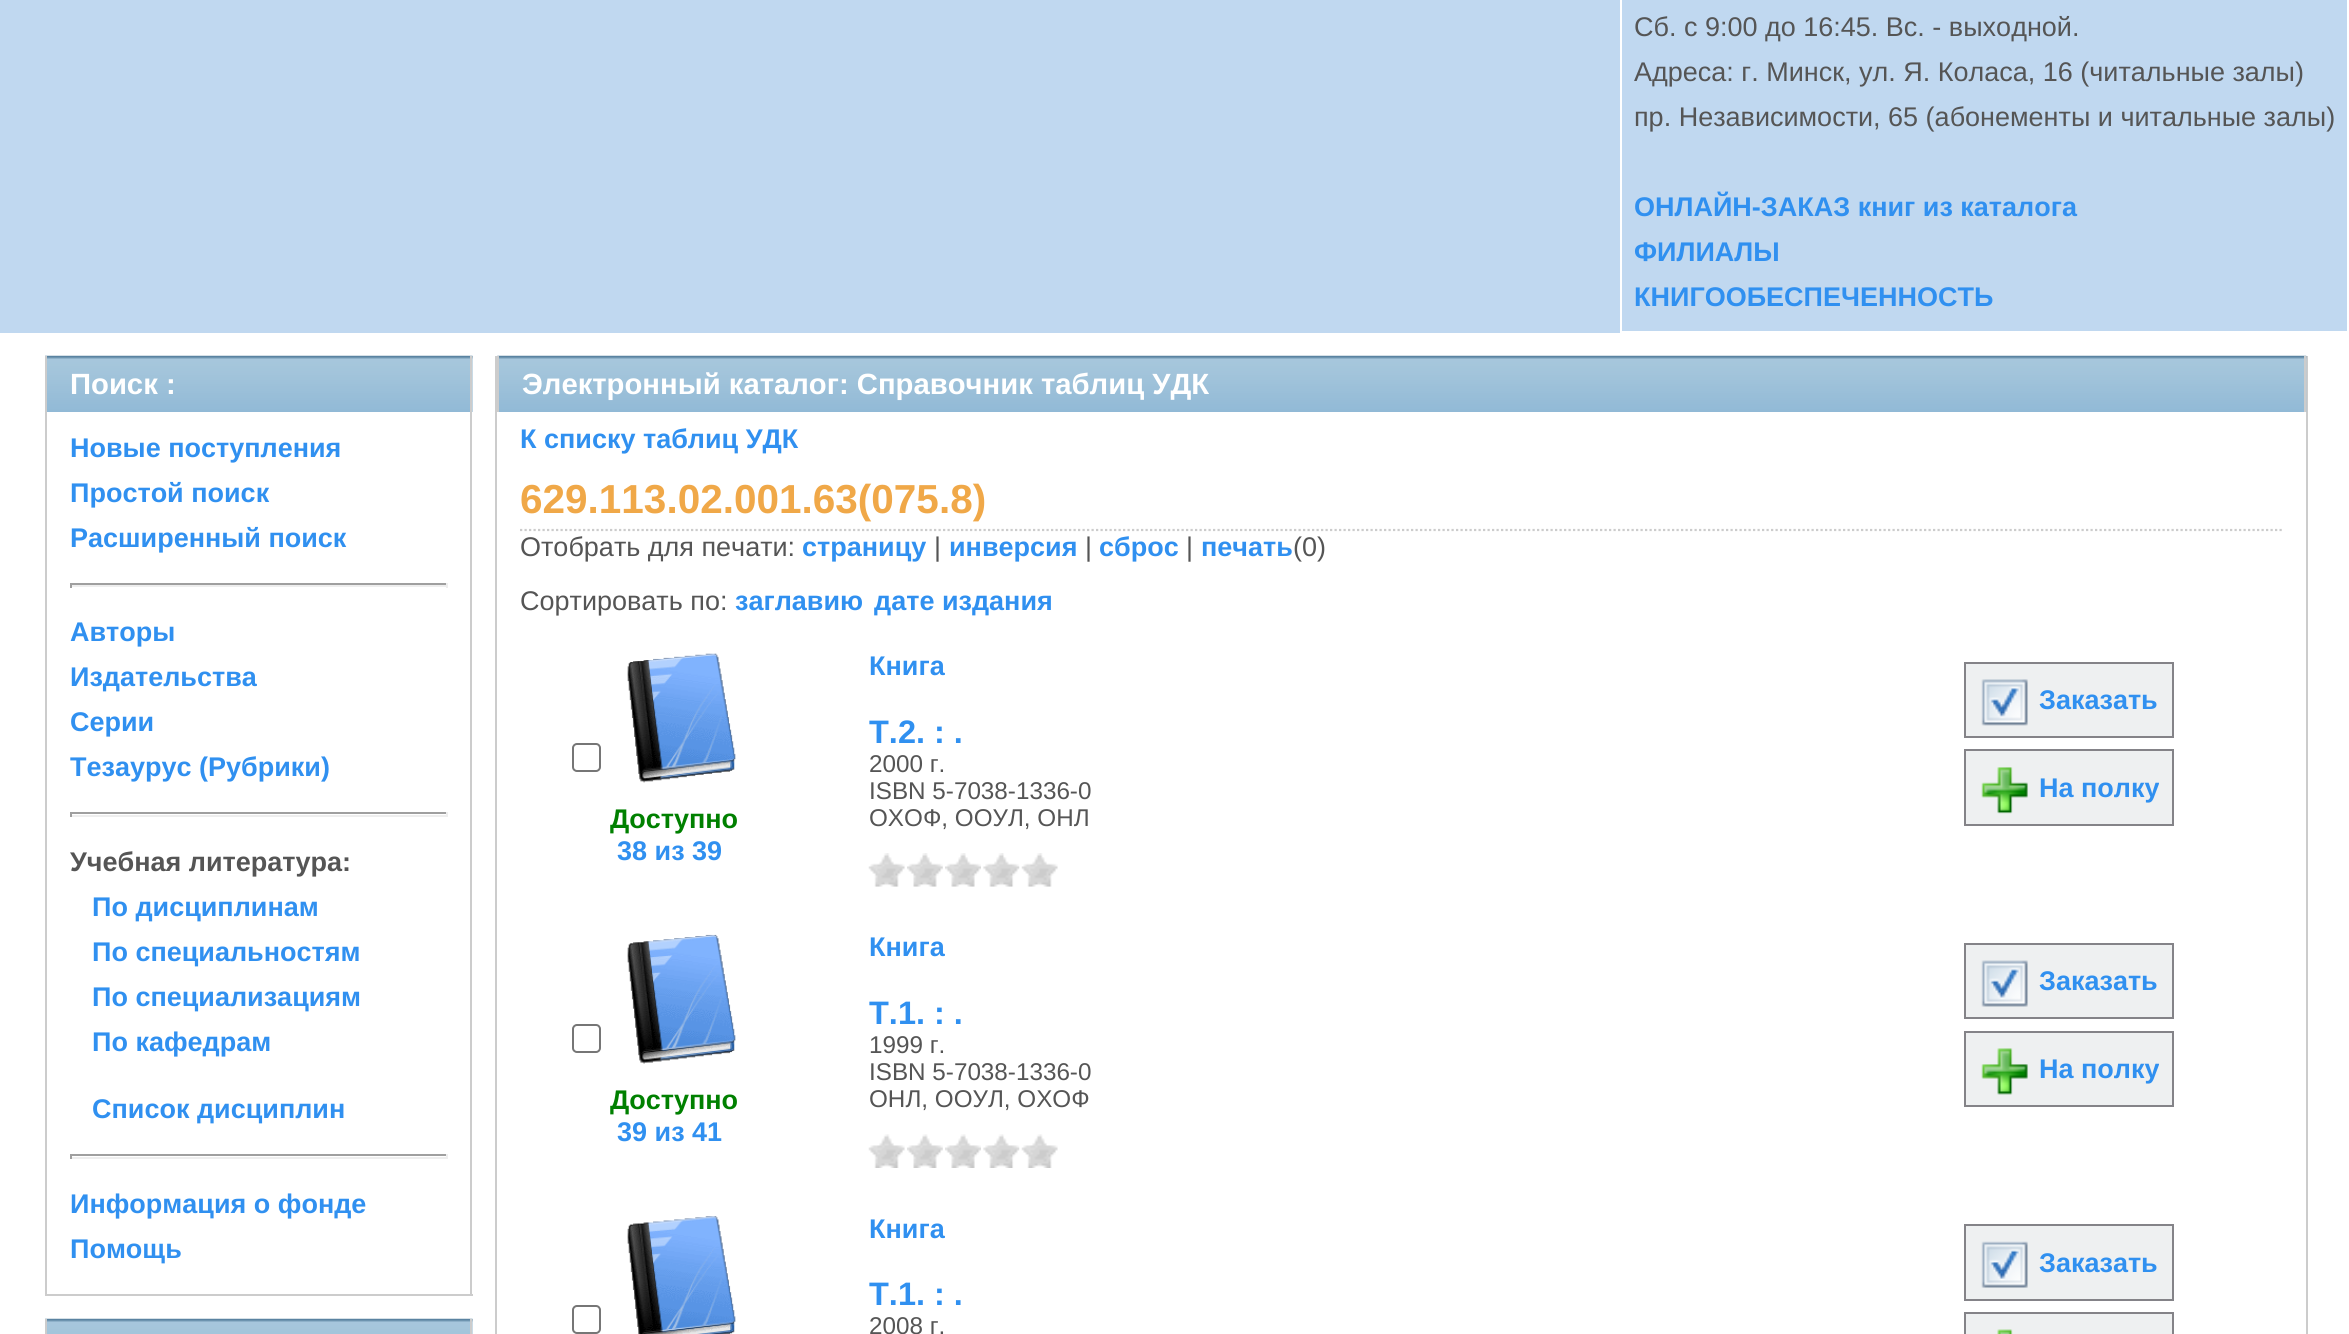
#include <cairo.h>
#include <math.h>
#include <stddef.h>

typedef struct { double x, y; const char *s; } line_t;
typedef struct { double x, y, w, h; unsigned color; } box_t;

static void ink(cairo_t *ctx, unsigned color) {
    cairo_set_source_rgb(ctx, (color >> 16) / 255.0, (color >> 8 & 255) / 255.0, (color & 255) / 255.0);
}

static void round_path(cairo_t *ctx, double x, double y, double w, double h, double r) {
    cairo_new_sub_path(ctx);
    cairo_arc(ctx, x + w - r, y + h - r, r, 0, M_PI / 2);
    cairo_arc(ctx, x + r, y + h - r, r, M_PI / 2, M_PI);
    cairo_arc(ctx, x + r, y + r, r, M_PI, 1.5 * M_PI);
    cairo_arc(ctx, x + w - r, y + r, r, 1.5 * M_PI, 2 * M_PI);
    cairo_close_path(ctx);
}

static void paste(cairo_t *ctx, const char *path, double x, double y, double w, double h) {
    cairo_surface_t *image = cairo_image_surface_create_from_png(path);
    cairo_save(ctx);
    cairo_set_source_surface(ctx, image, x, y);
    cairo_rectangle(ctx, x, y, w, h);
    cairo_fill(ctx);
    cairo_restore(ctx);
    cairo_surface_destroy(image);
}

int main(void) {
    cairo_surface_t *surface = cairo_image_surface_create(CAIRO_FORMAT_RGB24, 2349, 1334);
    cairo_t *ctx = cairo_create(surface);
    cairo_font_options_t *options = cairo_font_options_create();
    cairo_font_options_set_hint_metrics(options, CAIRO_HINT_METRICS_OFF);
    cairo_font_options_set_hint_style(options, CAIRO_HINT_STYLE_NONE);
    cairo_set_font_options(ctx, options);
    cairo_set_miter_limit(ctx, 4);
    ink(ctx, 0xFFFFFF);
    cairo_paint(ctx);
    ink(ctx, 0xC0D8F0);
    cairo_rectangle(ctx, 0, 0, 2347, 333);
    cairo_fill(ctx);
    cairo_rectangle(ctx, 1621, -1, 727, 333);
    ink(ctx, 0xFFFFFF);
    cairo_stroke(ctx);
    cairo_select_font_face(ctx, "Liberation Sans", CAIRO_FONT_SLANT_NORMAL, CAIRO_FONT_WEIGHT_NORMAL);
    cairo_set_font_size(ctx, 27);
    ink(ctx, 0x555555);
    {
        static const line_t items[] = {
            {1634, 36, "Сб. с 9:00 до 16:45. Вс. - выходной."},
            {1634, 81, "Адреса: г. Минск, ул. Я. Коласа, 16 (читальные залы)"},
            {1634, 126, "пр. Независимости, 65 (абонементы и читальные залы)"},
        };
        for (size_t i = 0; i < sizeof items / sizeof *items; i++) {
            cairo_move_to(ctx, items[i].x, items[i].y);
            cairo_show_text(ctx, items[i].s);
        }
    }
    cairo_select_font_face(ctx, "Liberation Sans", CAIRO_FONT_SLANT_NORMAL, CAIRO_FONT_WEIGHT_BOLD);
    ink(ctx, 0x3090F0);
    {
        static const line_t items[] = {
            {1634, 216, "ОНЛАЙН-ЗАКАЗ книг из каталога"},
            {1634, 261, "ФИЛИАЛЫ"},
            {1634, 306, "КНИГООБЕСПЕЧЕННОСТЬ"},
        };
        for (size_t i = 0; i < sizeof items / sizeof *items; i++) {
            cairo_move_to(ctx, items[i].x, items[i].y);
            cairo_show_text(ctx, items[i].s);
        }
    }
    ink(ctx, 0xEEF0F1);
    cairo_rectangle(ctx, 472, 356, 1, 56);
    cairo_fill(ctx);
    paste(ctx, "media/1.png", 45, 355, 428, 57);
    ink(ctx, 0xCCCCCC);
    cairo_rectangle(ctx, 470, 356, 2, 940);
    cairo_fill(ctx);
    cairo_rectangle(ctx, 45, 356, 2, 56);
    cairo_fill(ctx);
    cairo_set_font_size(ctx, 29.25);
    ink(ctx, 0xFFFFFF);
    cairo_move_to(ctx, 70, 394);
    cairo_show_text(ctx, "Поиск :");
    ink(ctx, 0xCCCCCC);
    cairo_rectangle(ctx, 45, 1294, 428, 2);
    cairo_fill(ctx);
    cairo_rectangle(ctx, 45, 412, 2, 884);
    cairo_fill(ctx);
    cairo_set_font_size(ctx, 27);
    ink(ctx, 0x3090F0);
    {
        static const line_t items[] = {
            {70, 457, "Новые поступления"},
            {70, 502, "Простой поиск"},
            {70, 547, "Расширенный поиск"},
        };
        for (size_t i = 0; i < sizeof items / sizeof *items; i++) {
            cairo_move_to(ctx, items[i].x, items[i].y);
            cairo_show_text(ctx, items[i].s);
        }
    }
    {
        static const box_t items[] = {
            {70, 583, 378, 2, 0x9F9F9F},
            {446, 583, 2, 5, 0xEEEEEE},
            {70, 585, 378, 2, 0xEEEEEE},
            {70, 583, 2, 5, 0x9F9F9F},
        };
        for (size_t i = 0; i < sizeof items / sizeof *items; i++) {
            ink(ctx, items[i].color);
            cairo_rectangle(ctx, items[i].x, items[i].y, items[i].w, items[i].h);
            cairo_fill(ctx);
        }
    }
    ink(ctx, 0x3090F0);
    {
        static const line_t items[] = {
            {70, 641, "Авторы"},
            {70, 686, "Издательства"},
            {70, 731, "Серии"},
            {70, 776, "Тезаурус (Рубрики)"},
        };
        for (size_t i = 0; i < sizeof items / sizeof *items; i++) {
            cairo_move_to(ctx, items[i].x, items[i].y);
            cairo_show_text(ctx, items[i].s);
        }
    }
    {
        static const box_t items[] = {
            {70, 812, 378, 2, 0x9F9F9F},
            {446, 812, 2, 5, 0xEEEEEE},
            {70, 815, 378, 2, 0xEEEEEE},
            {70, 812, 2, 5, 0x9F9F9F},
        };
        for (size_t i = 0; i < sizeof items / sizeof *items; i++) {
            ink(ctx, items[i].color);
            cairo_rectangle(ctx, items[i].x, items[i].y, items[i].w, items[i].h);
            cairo_fill(ctx);
        }
    }
    ink(ctx, 0x555555);
    cairo_move_to(ctx, 70, 871);
    cairo_show_text(ctx, "Учебная литература:");
    ink(ctx, 0x3090F0);
    {
        static const line_t items[] = {
            {92, 916, "По дисциплинам"},
            {92, 961, "По специальностям"},
            {92, 1006, "По специализациям"},
            {92, 1051, "По кафедрам"},
            {92, 1118, "Список дисциплин"},
        };
        for (size_t i = 0; i < sizeof items / sizeof *items; i++) {
            cairo_move_to(ctx, items[i].x, items[i].y);
            cairo_show_text(ctx, items[i].s);
        }
    }
    {
        static const box_t items[] = {
            {70, 1154, 378, 2, 0x9F9F9F},
            {446, 1154, 2, 5, 0xEEEEEE},
            {70, 1157, 378, 2, 0xEEEEEE},
            {70, 1154, 2, 5, 0x9F9F9F},
        };
        for (size_t i = 0; i < sizeof items / sizeof *items; i++) {
            ink(ctx, items[i].color);
            cairo_rectangle(ctx, items[i].x, items[i].y, items[i].w, items[i].h);
            cairo_fill(ctx);
        }
    }
    ink(ctx, 0x3090F0);
    cairo_move_to(ctx, 70, 1213);
    cairo_show_text(ctx, "Информация о фонде");
    cairo_move_to(ctx, 70, 1258);
    cairo_show_text(ctx, "Помощь");
    ink(ctx, 0xEEF0F1);
    cairo_rectangle(ctx, 472, 1319, 1, 15);
    cairo_fill(ctx);
    paste(ctx, "media/2.png", 45, 1318, 428, 16);
    {
        static const box_t items[] = {
            {470, 1319, 2, 15, 0xCCCCCC},
            {45, 1319, 2, 15, 0xCCCCCC},
            {2306, 356, 2, 978, 0xCCCCCC},
            {495, 356, 2, 978, 0xCCCCCC},
        };
        for (size_t i = 0; i < sizeof items / sizeof *items; i++) {
            ink(ctx, items[i].color);
            cairo_rectangle(ctx, items[i].x, items[i].y, items[i].w, items[i].h);
            cairo_fill(ctx);
        }
    }
    paste(ctx, "media/3.png", 497, 355, 1810, 57);
    cairo_rectangle(ctx, 2304, 356, 2, 56);
    cairo_fill(ctx);
    cairo_rectangle(ctx, 497, 356, 2, 56);
    cairo_fill(ctx);
    cairo_set_font_size(ctx, 29.25);
    ink(ctx, 0xFFFFFF);
    cairo_move_to(ctx, 522, 394);
    cairo_show_text(ctx, "Электронный каталог: Справочник таблиц УДК");
    cairo_set_font_size(ctx, 27);
    ink(ctx, 0x3090F0);
    cairo_move_to(ctx, 520, 448);
    cairo_show_text(ctx, "К списку таблиц УДК");
    cairo_new_path(ctx);
    cairo_move_to(ctx, 520, 530);
    cairo_line_to(ctx, 2284, 530);
    ink(ctx, 0xCCCCCC);
    cairo_set_line_width(ctx, 2.2);
    cairo_set_dash(ctx, (double[]){2.25, 2.25}, 2, 0);
    cairo_stroke(ctx);
    cairo_set_font_size(ctx, 40.5);
    ink(ctx, 0xF0A848);
    cairo_move_to(ctx, 520, 513);
    cairo_show_text(ctx, "629.113.02.001.63(075.8)");
    cairo_select_font_face(ctx, "Liberation Sans", CAIRO_FONT_SLANT_NORMAL, CAIRO_FONT_WEIGHT_NORMAL);
    cairo_set_font_size(ctx, 27);
    ink(ctx, 0x555555);
    cairo_move_to(ctx, 520, 556);
    cairo_show_text(ctx, "Отобрать для печати:");
    cairo_select_font_face(ctx, "Liberation Sans", CAIRO_FONT_SLANT_NORMAL, CAIRO_FONT_WEIGHT_BOLD);
    ink(ctx, 0x3090F0);
    cairo_move_to(ctx, 802, 556);
    cairo_show_text(ctx, "страницу");
    cairo_select_font_face(ctx, "Liberation Sans", CAIRO_FONT_SLANT_NORMAL, CAIRO_FONT_WEIGHT_NORMAL);
    ink(ctx, 0x555555);
    cairo_move_to(ctx, 934, 556);
    cairo_show_text(ctx, "|");
    cairo_select_font_face(ctx, "Liberation Sans", CAIRO_FONT_SLANT_NORMAL, CAIRO_FONT_WEIGHT_BOLD);
    ink(ctx, 0x3090F0);
    cairo_move_to(ctx, 949, 556);
    cairo_show_text(ctx, "инверсия");
    cairo_select_font_face(ctx, "Liberation Sans", CAIRO_FONT_SLANT_NORMAL, CAIRO_FONT_WEIGHT_NORMAL);
    ink(ctx, 0x555555);
    cairo_move_to(ctx, 1085, 556);
    cairo_show_text(ctx, "|");
    cairo_select_font_face(ctx, "Liberation Sans", CAIRO_FONT_SLANT_NORMAL, CAIRO_FONT_WEIGHT_BOLD);
    ink(ctx, 0x3090F0);
    cairo_move_to(ctx, 1099, 556);
    cairo_show_text(ctx, "сброс");
    cairo_select_font_face(ctx, "Liberation Sans", CAIRO_FONT_SLANT_NORMAL, CAIRO_FONT_WEIGHT_NORMAL);
    ink(ctx, 0x555555);
    cairo_move_to(ctx, 1186, 556);
    cairo_show_text(ctx, "|");
    cairo_select_font_face(ctx, "Liberation Sans", CAIRO_FONT_SLANT_NORMAL, CAIRO_FONT_WEIGHT_BOLD);
    ink(ctx, 0x3090F0);
    cairo_move_to(ctx, 1201, 556);
    cairo_show_text(ctx, "печать");
    cairo_select_font_face(ctx, "Liberation Sans", CAIRO_FONT_SLANT_NORMAL, CAIRO_FONT_WEIGHT_NORMAL);
    ink(ctx, 0x555555);
    cairo_move_to(ctx, 1293, 556);
    cairo_show_text(ctx, "(0)");
    cairo_move_to(ctx, 520, 610);
    cairo_show_text(ctx, "Сортировать по:");
    cairo_select_font_face(ctx, "Liberation Sans", CAIRO_FONT_SLANT_NORMAL, CAIRO_FONT_WEIGHT_BOLD);
    ink(ctx, 0x3090F0);
    {
        static const line_t items[] = {
            {735, 610, "заглавию"},
            {874, 610, "дате издания"},
            {869, 675, "Книга"},
        };
        for (size_t i = 0; i < sizeof items / sizeof *items; i++) {
            cairo_move_to(ctx, items[i].x, items[i].y);
            cairo_show_text(ctx, items[i].s);
        }
    }
    cairo_set_font_size(ctx, 32.5);
    cairo_move_to(ctx, 869, 743);
    cairo_show_text(ctx, "Т.2. : .");
    cairo_select_font_face(ctx, "Liberation Sans", CAIRO_FONT_SLANT_NORMAL, CAIRO_FONT_WEIGHT_NORMAL);
    cairo_set_font_size(ctx, 24.25);
    ink(ctx, 0x555555);
    {
        static const line_t items[] = {
            {869, 772, "2000 г."},
            {869, 799, "ISBN 5-7038-1336-0"},
            {869, 826, "ОХОФ, ООУЛ, ОНЛ"},
        };
        for (size_t i = 0; i < sizeof items / sizeof *items; i++) {
            cairo_move_to(ctx, items[i].x, items[i].y);
            cairo_show_text(ctx, items[i].s);
        }
    }
    paste(ctx, "media/4.png", 868, 853, 37, 34);
    paste(ctx, "media/5.png", 907, 853, 36, 34);
    paste(ctx, "media/6.png", 945, 853, 36, 34);
    paste(ctx, "media/7.png", 983, 853, 37, 34);
    paste(ctx, "media/4.png", 1021, 853, 37, 34);
    ink(ctx, 0xEEF0F1);
    cairo_rectangle(ctx, 1965, 663, 208, 74);
    cairo_fill_preserve(ctx);
    ink(ctx, 0x848388);
    cairo_set_line_width(ctx, 2);
    cairo_set_dash(ctx, NULL, 0, 0);
    cairo_stroke(ctx);
    paste(ctx, "media/8.png", 1981, 679, 47, 47);
    cairo_select_font_face(ctx, "Liberation Sans", CAIRO_FONT_SLANT_NORMAL, CAIRO_FONT_WEIGHT_BOLD);
    cairo_set_font_size(ctx, 27);
    ink(ctx, 0x3090F0);
    cairo_move_to(ctx, 2039, 709);
    cairo_show_text(ctx, "Заказать");
    ink(ctx, 0xEEF0F1);
    cairo_rectangle(ctx, 1965, 750, 208, 75);
    cairo_fill_preserve(ctx);
    ink(ctx, 0x848388);
    cairo_stroke(ctx);
    paste(ctx, "media/9.png", 1981, 767, 47, 47);
    ink(ctx, 0x3090F0);
    cairo_move_to(ctx, 2039, 797);
    cairo_show_text(ctx, "На полку");
    round_path(ctx, 573, 744, 27, 27, 4);
    ink(ctx, 0x767676);
    cairo_stroke(ctx);
    paste(ctx, "media/10.png", 627, 653, 109, 130);
    ink(ctx, 0x008000);
    cairo_move_to(ctx, 610, 828);
    cairo_show_text(ctx, "Доступно");
    ink(ctx, 0x3090F0);
    cairo_move_to(ctx, 617, 860);
    cairo_show_text(ctx, "38 из 39");
    cairo_move_to(ctx, 869, 956);
    cairo_show_text(ctx, "Книга");
    cairo_set_font_size(ctx, 32.5);
    cairo_move_to(ctx, 869, 1024);
    cairo_show_text(ctx, "Т.1. : .");
    cairo_select_font_face(ctx, "Liberation Sans", CAIRO_FONT_SLANT_NORMAL, CAIRO_FONT_WEIGHT_NORMAL);
    cairo_set_font_size(ctx, 24.25);
    ink(ctx, 0x555555);
    {
        static const line_t items[] = {
            {869, 1053, "1999 г."},
            {869, 1080, "ISBN 5-7038-1336-0"},
            {869, 1107, "ОНЛ, ООУЛ, ОХОФ"},
        };
        for (size_t i = 0; i < sizeof items / sizeof *items; i++) {
            cairo_move_to(ctx, items[i].x, items[i].y);
            cairo_show_text(ctx, items[i].s);
        }
    }
    paste(ctx, "media/11.png", 868, 1134, 37, 34);
    paste(ctx, "media/12.png", 907, 1134, 36, 34);
    paste(ctx, "media/13.png", 945, 1134, 36, 34);
    paste(ctx, "media/14.png", 983, 1134, 37, 34);
    paste(ctx, "media/11.png", 1021, 1134, 37, 34);
    ink(ctx, 0xEEF0F1);
    cairo_rectangle(ctx, 1965, 944, 208, 74);
    cairo_fill_preserve(ctx);
    ink(ctx, 0x848388);
    cairo_stroke(ctx);
    paste(ctx, "media/15.png", 1981, 960, 47, 47);
    cairo_select_font_face(ctx, "Liberation Sans", CAIRO_FONT_SLANT_NORMAL, CAIRO_FONT_WEIGHT_BOLD);
    cairo_set_font_size(ctx, 27);
    ink(ctx, 0x3090F0);
    cairo_move_to(ctx, 2039, 990);
    cairo_show_text(ctx, "Заказать");
    ink(ctx, 0xEEF0F1);
    cairo_rectangle(ctx, 1965, 1032, 208, 74);
    cairo_fill_preserve(ctx);
    ink(ctx, 0x848388);
    cairo_stroke(ctx);
    paste(ctx, "media/16.png", 1981, 1048, 47, 47);
    ink(ctx, 0x3090F0);
    cairo_move_to(ctx, 2039, 1078);
    cairo_show_text(ctx, "На полку");
    round_path(ctx, 573, 1025, 27, 27, 4);
    ink(ctx, 0x767676);
    cairo_stroke(ctx);
    paste(ctx, "media/17.png", 627, 934, 109, 130);
    ink(ctx, 0x008000);
    cairo_move_to(ctx, 610, 1109);
    cairo_show_text(ctx, "Доступно");
    ink(ctx, 0x3090F0);
    cairo_move_to(ctx, 617, 1141);
    cairo_show_text(ctx, "39 из 41");
    round_path(ctx, 573, 1306, 27, 27, 4);
    ink(ctx, 0x767676);
    cairo_stroke(ctx);
    paste(ctx, "media/18.png", 627, 1216, 109, 118);
    ink(ctx, 0x3090F0);
    cairo_move_to(ctx, 869, 1238);
    cairo_show_text(ctx, "Книга");
    cairo_set_font_size(ctx, 32.5);
    cairo_move_to(ctx, 869, 1305);
    cairo_show_text(ctx, "Т.1. : .");
    cairo_select_font_face(ctx, "Liberation Sans", CAIRO_FONT_SLANT_NORMAL, CAIRO_FONT_WEIGHT_NORMAL);
    cairo_set_font_size(ctx, 24.25);
    ink(ctx, 0x555555);
    cairo_move_to(ctx, 869, 1334);
    cairo_show_text(ctx, "2008 г.");
    ink(ctx, 0xEEF0F1);
    cairo_rectangle(ctx, 1965, 1225, 208, 75);
    cairo_fill_preserve(ctx);
    ink(ctx, 0x848388);
    cairo_stroke(ctx);
    paste(ctx, "media/19.png", 1981, 1241, 47, 47);
    cairo_select_font_face(ctx, "Liberation Sans", CAIRO_FONT_SLANT_NORMAL, CAIRO_FONT_WEIGHT_BOLD);
    cairo_set_font_size(ctx, 27);
    ink(ctx, 0x3090F0);
    cairo_move_to(ctx, 2039, 1272);
    cairo_show_text(ctx, "Заказать");
    ink(ctx, 0xEEF0F1);
    cairo_rectangle(ctx, 1965, 1313, 208, 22);
    cairo_fill_preserve(ctx);
    ink(ctx, 0x848388);
    cairo_stroke(ctx);
    paste(ctx, "media/20.png", 1997, 1329, 16, 5);
    cairo_surface_write_to_png(surface, "image.png");
    cairo_font_options_destroy(options);
    cairo_destroy(ctx);
    cairo_surface_destroy(surface);
    return 0;
}
